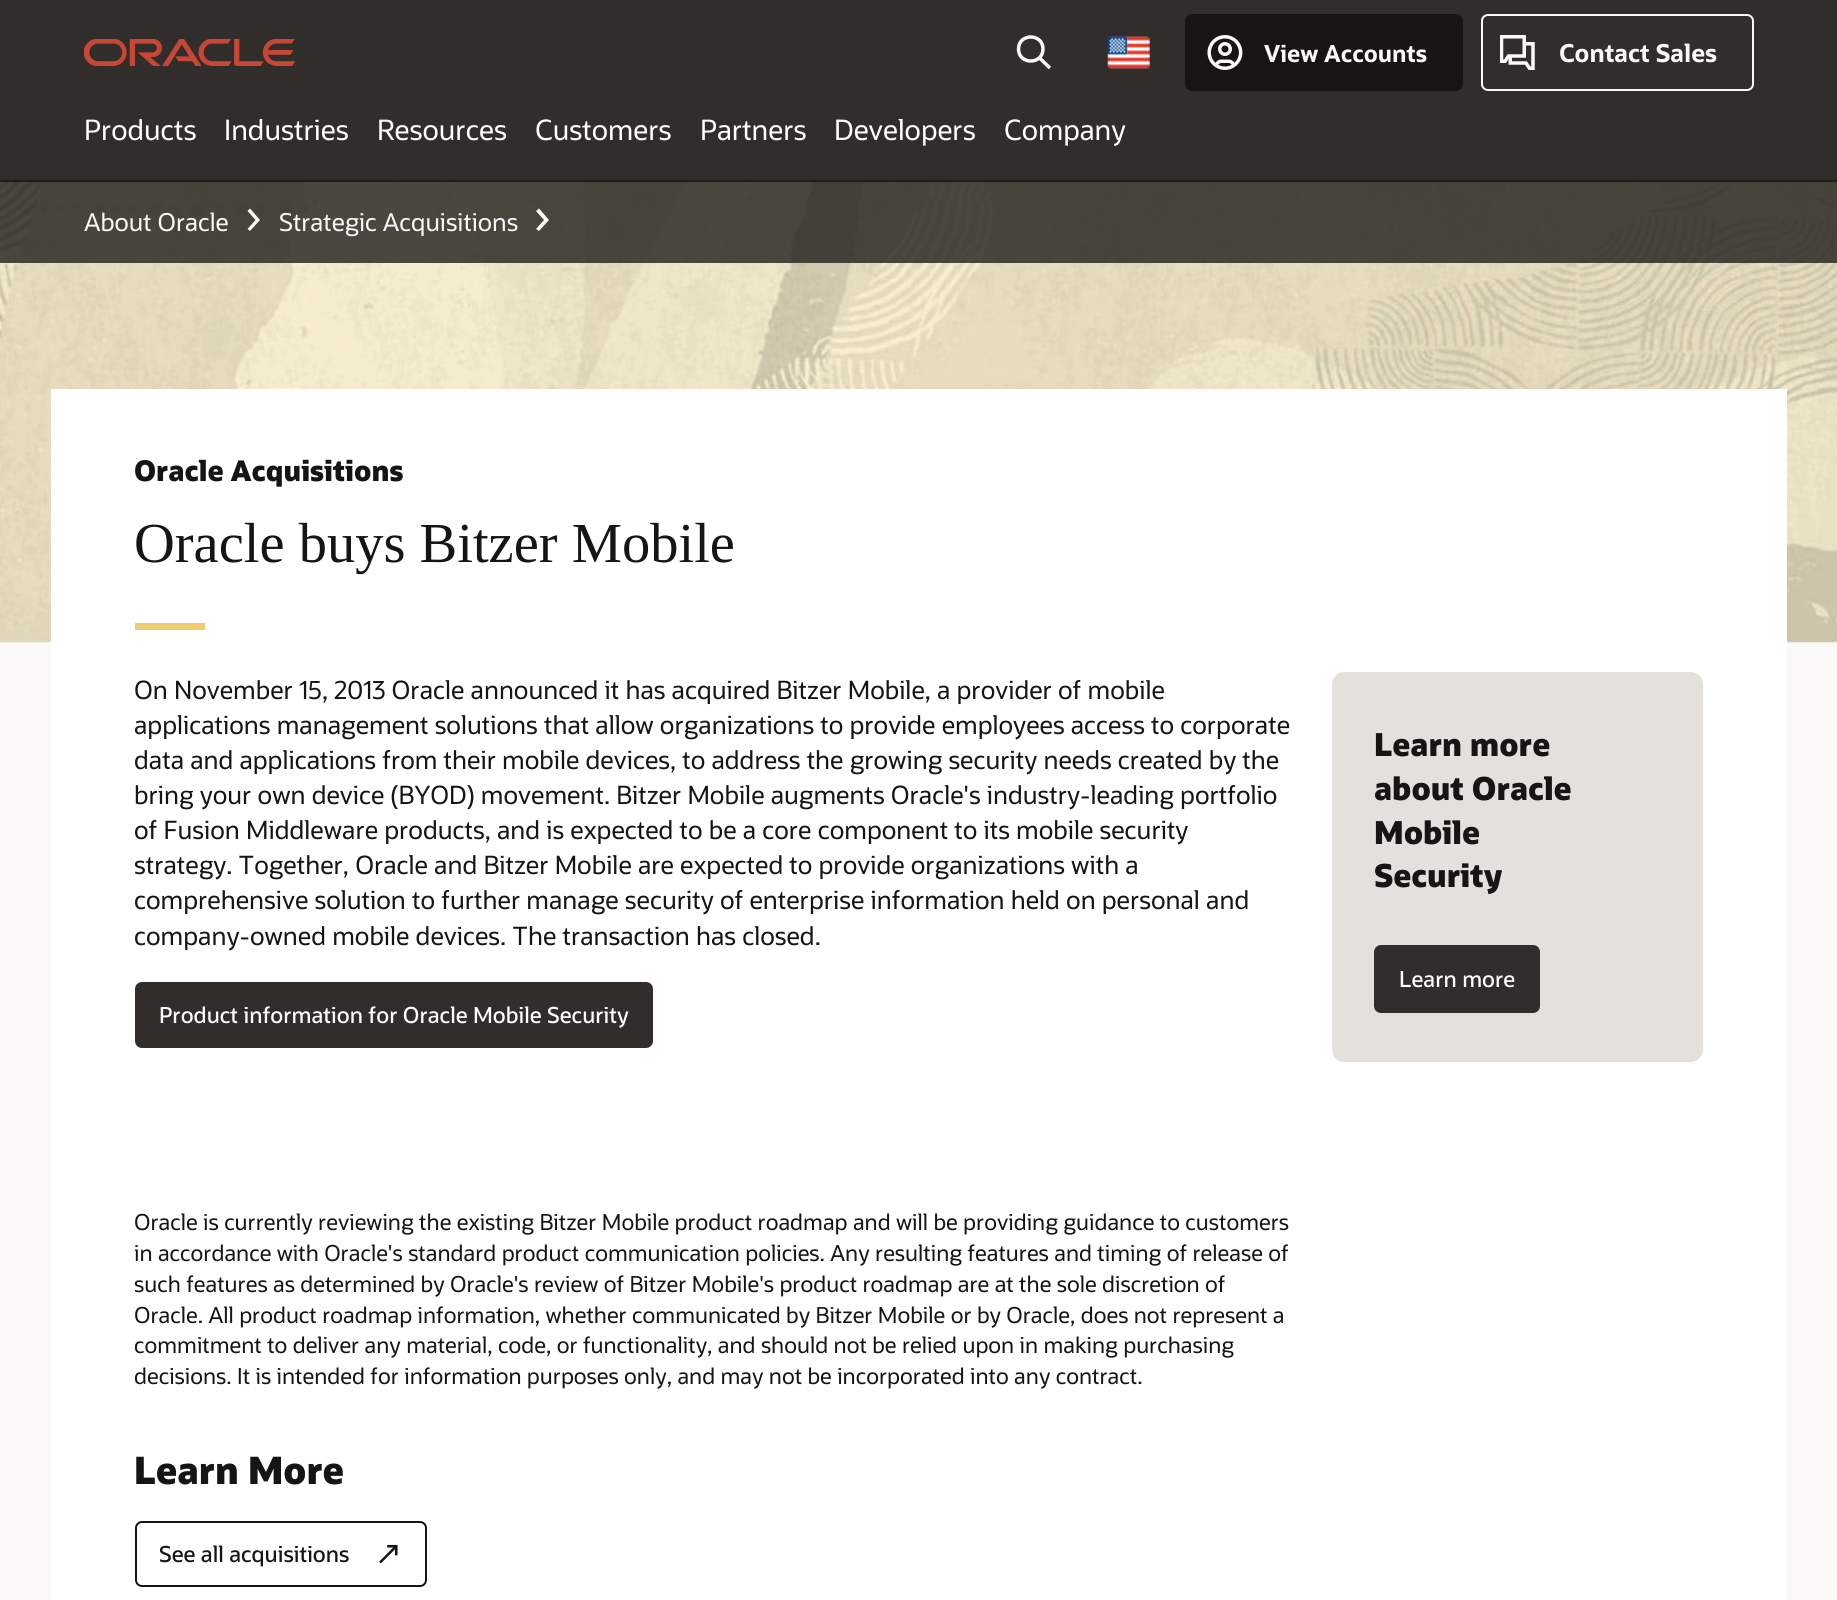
#include <cairo.h>
#include <math.h>
#include <stddef.h>

typedef struct { double x, y; const char *s; } line_t;

static void ink(cairo_t *ctx, unsigned color) {
    cairo_set_source_rgb(ctx, (color >> 16) / 255.0, (color >> 8 & 255) / 255.0, (color & 255) / 255.0);
}

static void round_path(cairo_t *ctx, double x, double y, double w, double h, double r) {
    cairo_new_sub_path(ctx);
    cairo_arc(ctx, x + w - r, y + h - r, r, 0, M_PI / 2);
    cairo_arc(ctx, x + r, y + h - r, r, M_PI / 2, M_PI);
    cairo_arc(ctx, x + r, y + r, r, M_PI, 1.5 * M_PI);
    cairo_arc(ctx, x + w - r, y + r, r, 1.5 * M_PI, 2 * M_PI);
    cairo_close_path(ctx);
}

static void paste(cairo_t *ctx, const char *path, double x, double y, double w, double h) {
    cairo_surface_t *image = cairo_image_surface_create_from_png(path);
    cairo_save(ctx);
    cairo_set_source_surface(ctx, image, x, y);
    cairo_rectangle(ctx, x, y, w, h);
    cairo_fill(ctx);
    cairo_restore(ctx);
    cairo_surface_destroy(image);
}

int main(void) {
    cairo_surface_t *surface = cairo_image_surface_create(CAIRO_FORMAT_RGB24, 1837, 1600);
    cairo_t *ctx = cairo_create(surface);
    cairo_font_options_t *options = cairo_font_options_create();
    cairo_font_options_set_hint_metrics(options, CAIRO_HINT_METRICS_OFF);
    cairo_font_options_set_hint_style(options, CAIRO_HINT_STYLE_NONE);
    cairo_set_font_options(ctx, options);
    cairo_set_miter_limit(ctx, 4);
    ink(ctx, 0xFBF9F8);
    cairo_paint(ctx);
    ink(ctx, 0x312D2A);
    cairo_rectangle(ctx, 0, 0, 1837, 180);
    cairo_fill(ctx);
    paste(ctx, "media/1.png", 84, 39, 212, 27);
    cairo_new_path(ctx);
    cairo_move_to(ctx, 1039.5, 58);
    cairo_line_to(ctx, 1050, 68);
    cairo_move_to(ctx, 1043, 49);
    cairo_curve_to(ctx, 1043, 65, 1018.5, 65, 1018.5, 49);
    cairo_curve_to(ctx, 1018.5, 33, 1043, 33, 1043, 49);
    cairo_close_path(ctx);
    ink(ctx, 0xFBF9F8);
    cairo_set_line_width(ctx, 3.5);
    cairo_stroke(ctx);
    paste(ctx, "media/2.png", 1107, 36, 43, 33);
    ink(ctx, 0x161513);
    round_path(ctx, 1185, 14, 278, 77, 7);
    cairo_fill(ctx);
    paste(ctx, "media/3.png", 1207, 35, 36, 35);
    cairo_select_font_face(ctx, "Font", CAIRO_FONT_SLANT_NORMAL, CAIRO_FONT_WEIGHT_BOLD);
    cairo_set_font_size(ctx, 23.25);
    ink(ctx, 0xFBF9F8);
    cairo_move_to(ctx, 1264, 62);
    cairo_show_text(ctx, "View Accounts");
    paste(ctx, "media/4.png", 1500, 35, 35, 35);
    round_path(ctx, 1482, 15, 271, 75, 6);
    cairo_set_line_width(ctx, 2);
    cairo_stroke(ctx);
    cairo_set_font_size(ctx, 24.5);
    cairo_move_to(ctx, 1559, 62);
    cairo_show_text(ctx, "Contact Sales");
    cairo_select_font_face(ctx, "Font", CAIRO_FONT_SLANT_NORMAL, CAIRO_FONT_WEIGHT_NORMAL);
    cairo_set_font_size(ctx, 28);
    ink(ctx, 0xFFFFFF);
    {
        static const line_t items[] = {
            {84, 140, "Products"},
            {224, 140, "Industries"},
            {377, 140, "Resources"},
            {535, 140, "Customers"},
            {700, 140, "Partners"},
            {834, 140, "Developers"},
            {1004, 140, "Company"},
        };
        for (size_t i = 0; i < sizeof items / sizeof *items; i++) {
            cairo_move_to(ctx, items[i].x, items[i].y);
            cairo_show_text(ctx, items[i].s);
        }
    }
    ink(ctx, 0x201E1C);
    cairo_rectangle(ctx, 0, 180, 1837, 2);
    cairo_fill(ctx);
    paste(ctx, "media/5.png", 0, 182, 1837, 461);
    cairo_set_source_rgba(ctx, 0.129, 0.118, 0.11, 0.8);
    cairo_rectangle(ctx, 0, 182, 1837, 81);
    cairo_fill(ctx);
    cairo_set_font_size(ctx, 24.5);
    ink(ctx, 0xFBF9F8);
    cairo_move_to(ctx, 84, 231);
    cairo_show_text(ctx, "About Oracle");
    cairo_new_path(ctx);
    cairo_move_to(ctx, 247.5, 229);
    cairo_line_to(ctx, 250, 231);
    cairo_line_to(ctx, 260, 220);
    cairo_line_to(ctx, 250, 208.5);
    cairo_line_to(ctx, 247.5, 211);
    cairo_line_to(ctx, 255.5, 220);
    cairo_close_path(ctx);
    cairo_fill(ctx);
    cairo_move_to(ctx, 279, 231);
    cairo_show_text(ctx, "Strategic Acquisitions");
    cairo_new_path(ctx);
    cairo_move_to(ctx, 536, 229);
    cairo_line_to(ctx, 539, 231);
    cairo_line_to(ctx, 549, 220);
    cairo_line_to(ctx, 539, 208.5);
    cairo_line_to(ctx, 536, 211);
    cairo_line_to(ctx, 544, 220);
    cairo_close_path(ctx);
    cairo_fill(ctx);
    ink(ctx, 0xFFFFFF);
    cairo_rectangle(ctx, 51, 389, 1736, 1211);
    cairo_fill(ctx);
    cairo_select_font_face(ctx, "Font ExtraBold", CAIRO_FONT_SLANT_NORMAL, CAIRO_FONT_WEIGHT_NORMAL);
    cairo_set_font_size(ctx, 28.25);
    ink(ctx, 0x161513);
    cairo_move_to(ctx, 134, 481);
    cairo_show_text(ctx, "Oracle Acquisitions");
    cairo_select_font_face(ctx, "Liberation Serif", CAIRO_FONT_SLANT_NORMAL, CAIRO_FONT_WEIGHT_NORMAL);
    cairo_set_font_size(ctx, 56.5);
    cairo_move_to(ctx, 134, 562);
    cairo_show_text(ctx, "Oracle buys Bitzer Mobile");
    ink(ctx, 0xF0CC71);
    cairo_rectangle(ctx, 135, 623, 70, 7);
    cairo_fill(ctx);
    cairo_select_font_face(ctx, "Font", CAIRO_FONT_SLANT_NORMAL, CAIRO_FONT_WEIGHT_NORMAL);
    cairo_set_font_size(ctx, 25.1);
    ink(ctx, 0x161513);
    {
        static const line_t items[] = {
            {134, 699, "On November 15, 2013 Oracle announced it has acquired Bitzer Mobile, a provider of mobile"},
            {134, 734, "applications management solutions that allow organizations to provide employees access to corporate"},
            {134, 769, "data and applications from their mobile devices, to address the growing security needs created by the"},
            {134, 804, "bring your own device (BYOD) movement. Bitzer Mobile augments Oracle's industry-leading portfolio"},
            {134, 839, "of Fusion Middleware products, and is expected to be a core component to its mobile security"},
            {134, 874, "strategy. Together, Oracle and Bitzer Mobile are expected to provide organizations with a"},
            {134, 909, "comprehensive solution to further manage security of enterprise information held on personal and"},
            {134, 945, "company-owned mobile devices. The transaction has closed."},
        };
        for (size_t i = 0; i < sizeof items / sizeof *items; i++) {
            cairo_move_to(ctx, items[i].x, items[i].y);
            cairo_show_text(ctx, items[i].s);
        }
    }
    ink(ctx, 0x312D2A);
    round_path(ctx, 135, 982, 518, 66, 7);
    cairo_fill(ctx);
    cairo_select_font_face(ctx, "Font Medium", CAIRO_FONT_SLANT_NORMAL, CAIRO_FONT_WEIGHT_NORMAL);
    cairo_set_font_size(ctx, 21.95);
    ink(ctx, 0xFFFFFF);
    cairo_move_to(ctx, 159, 1023);
    cairo_show_text(ctx, "Product information for Oracle Mobile Security");
    cairo_select_font_face(ctx, "Font", CAIRO_FONT_SLANT_NORMAL, CAIRO_FONT_WEIGHT_NORMAL);
    ink(ctx, 0x161513);
    {
        static const line_t items[] = {
            {134, 1230, "Oracle is currently reviewing the existing Bitzer Mobile product roadmap and will be providing guidance to customers"},
            {134, 1261, "in accordance with Oracle's standard product communication policies. Any resulting features and timing of release of"},
            {134, 1292, "such features as determined by Oracle's review of Bitzer Mobile's product roadmap are at the sole discretion of"},
            {134, 1323, "Oracle. All product roadmap information, whether communicated by Bitzer Mobile or by Oracle, does not represent a"},
            {134, 1353, "commitment to deliver any material, code, or functionality, and should not be relied upon in making purchasing"},
            {134, 1384, "decisions. It is intended for information purposes only, and may not be incorporated into any contract."},
        };
        for (size_t i = 0; i < sizeof items / sizeof *items; i++) {
            cairo_move_to(ctx, items[i].x, items[i].y);
            cairo_show_text(ctx, items[i].s);
        }
    }
    cairo_select_font_face(ctx, "Font ExtraBold", CAIRO_FONT_SLANT_NORMAL, CAIRO_FONT_WEIGHT_NORMAL);
    cairo_set_font_size(ctx, 37.5);
    cairo_move_to(ctx, 134, 1484);
    cairo_show_text(ctx, "Learn More");
    paste(ctx, "media/6.png", 379, 1544, 19, 20);
    round_path(ctx, 136, 1522, 290, 64, 6);
    cairo_stroke(ctx);
    cairo_select_font_face(ctx, "Font Medium", CAIRO_FONT_SLANT_NORMAL, CAIRO_FONT_WEIGHT_NORMAL);
    cairo_set_font_size(ctx, 21.95);
    cairo_move_to(ctx, 159, 1562);
    cairo_show_text(ctx, "See all acquisitions");
    ink(ctx, 0xE4E1DD);
    round_path(ctx, 1332, 672, 371, 390, 12);
    cairo_fill(ctx);
    cairo_select_font_face(ctx, "Font ExtraBold", CAIRO_FONT_SLANT_NORMAL, CAIRO_FONT_WEIGHT_NORMAL);
    cairo_set_font_size(ctx, 31.5);
    ink(ctx, 0x161513);
    {
        static const line_t items[] = {
            {1374, 756, "Learn more"},
            {1374, 800, "about Oracle"},
            {1374, 844, "Mobile"},
            {1374, 887, "Security"},
        };
        for (size_t i = 0; i < sizeof items / sizeof *items; i++) {
            cairo_move_to(ctx, items[i].x, items[i].y);
            cairo_show_text(ctx, items[i].s);
        }
    }
    ink(ctx, 0x312D2A);
    round_path(ctx, 1374, 945, 166, 68, 7);
    cairo_fill(ctx);
    cairo_select_font_face(ctx, "Font Medium", CAIRO_FONT_SLANT_NORMAL, CAIRO_FONT_WEIGHT_NORMAL);
    cairo_set_font_size(ctx, 21.95);
    ink(ctx, 0xFFFFFF);
    cairo_move_to(ctx, 1399, 987);
    cairo_show_text(ctx, "Learn more");
    cairo_surface_write_to_png(surface, "image.png");
    cairo_font_options_destroy(options);
    cairo_destroy(ctx);
    cairo_surface_destroy(surface);
    return 0;
}
